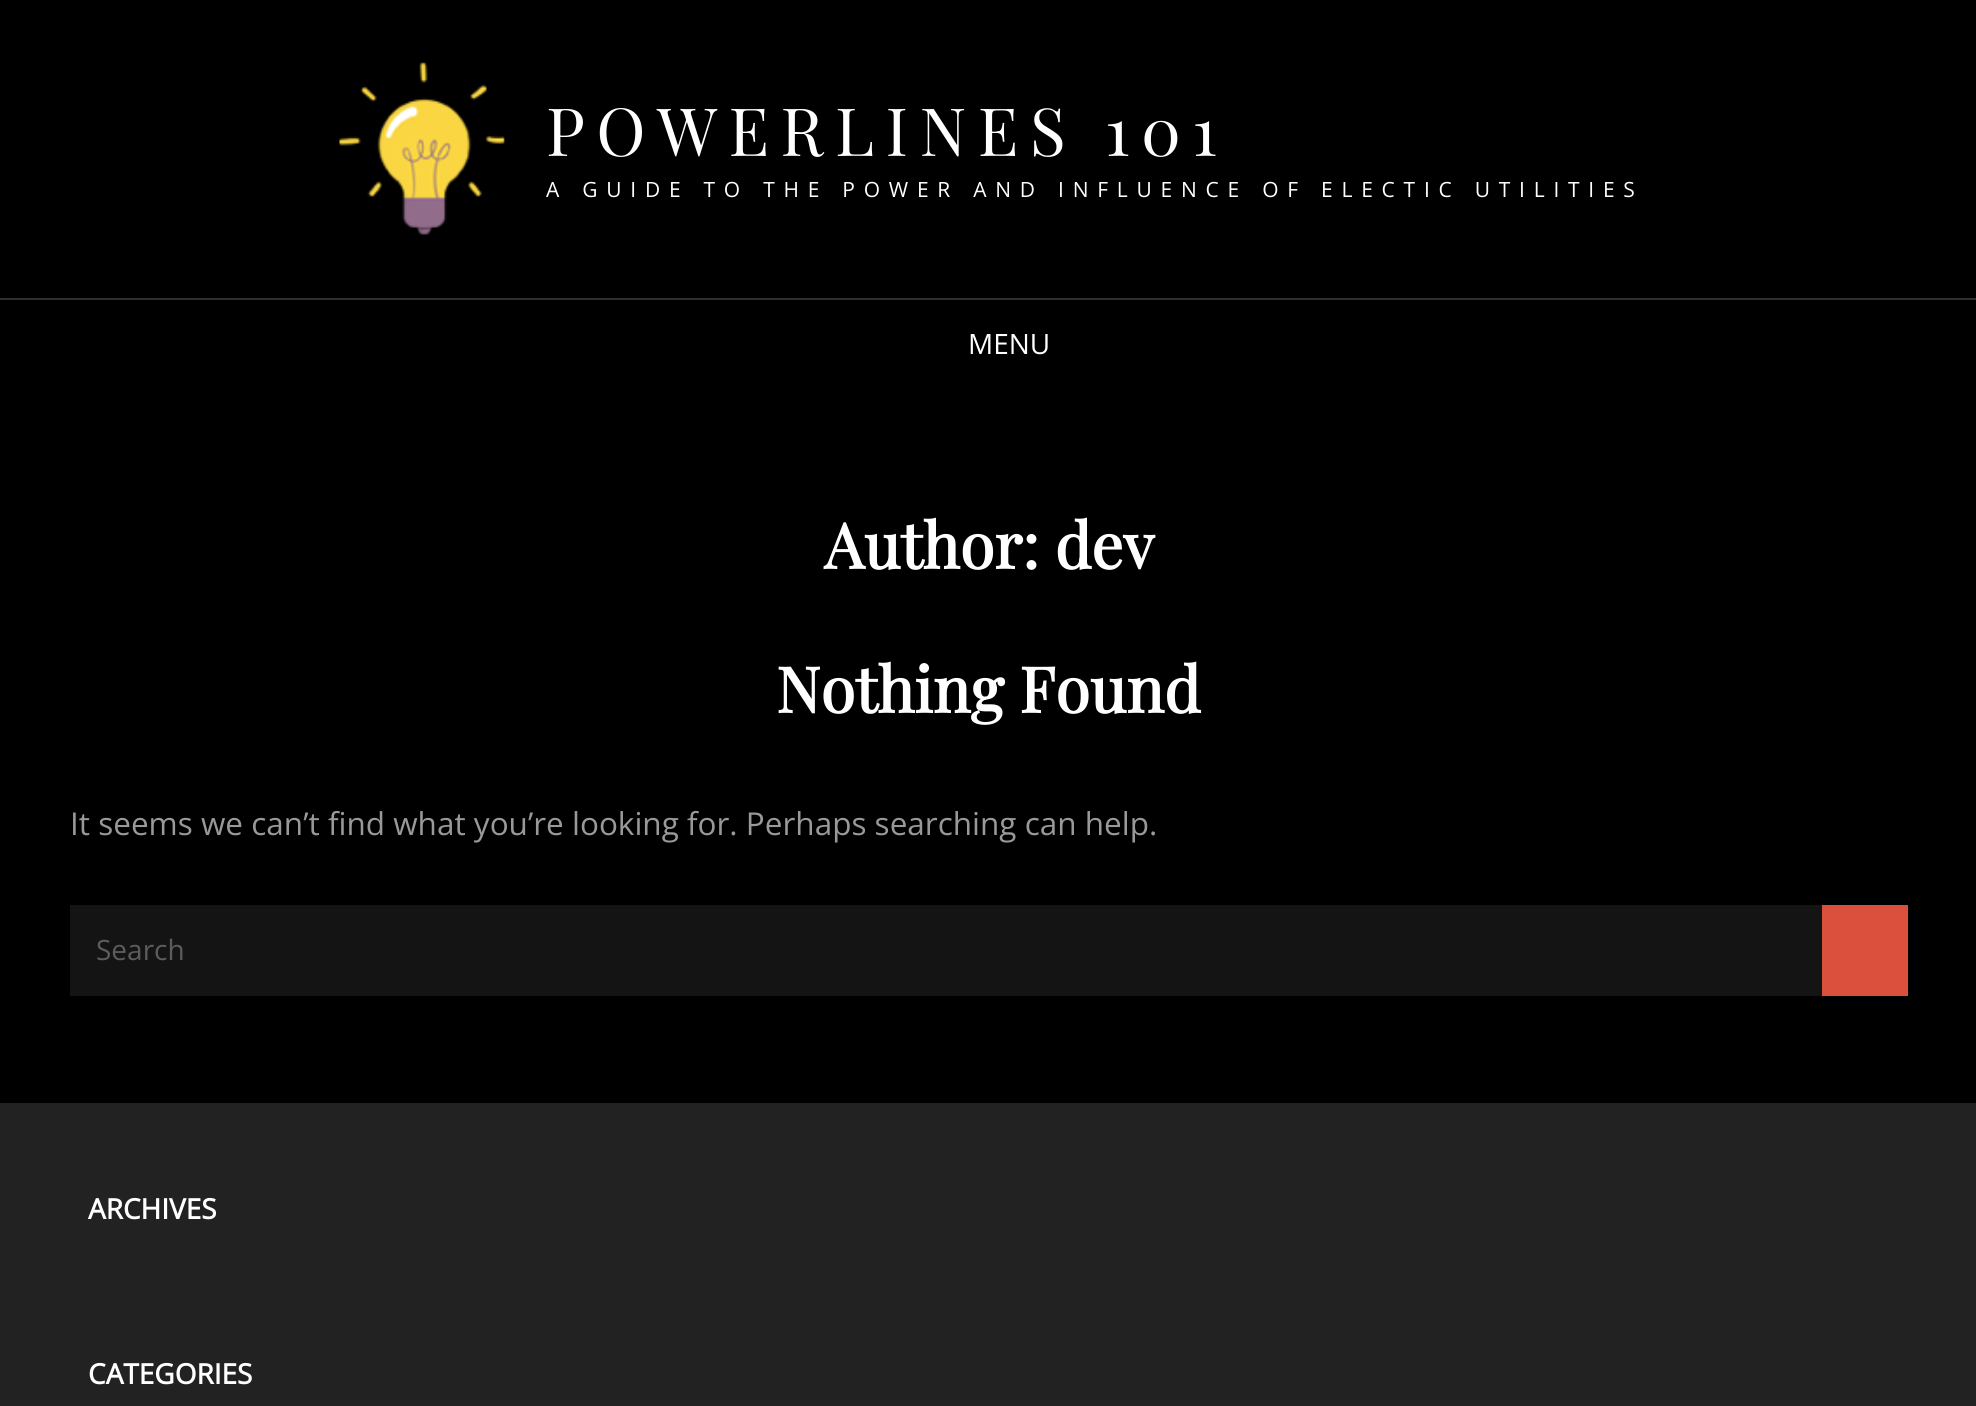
#include <cairo.h>
#include <math.h>
#include <stddef.h>


static void ink(cairo_t *ctx, unsigned color) {
    cairo_set_source_rgb(ctx, (color >> 16) / 255.0, (color >> 8 & 255) / 255.0, (color & 255) / 255.0);
}

static void write_spaced(cairo_t *ctx, double x, double y, const char *s, double letter, double word) {
    cairo_move_to(ctx, x, y);
    while (*s) {
        char ch[5] = {0};
        int n = 0;
        do ch[n++] = *s++; while ((*s & 0xC0) == 0x80);
        cairo_show_text(ctx, ch);
        cairo_rel_move_to(ctx, letter + word * (*ch == ' '), 0);
    }
}

static void paste(cairo_t *ctx, const char *path, double x, double y, double w, double h) {
    cairo_surface_t *image = cairo_image_surface_create_from_png(path);
    cairo_save(ctx);
    cairo_set_source_surface(ctx, image, x, y);
    cairo_rectangle(ctx, x, y, w, h);
    cairo_fill(ctx);
    cairo_restore(ctx);
    cairo_surface_destroy(image);
}

int main(void) {
    cairo_surface_t *surface = cairo_image_surface_create(CAIRO_FORMAT_RGB24, 1976, 1406);
    cairo_t *ctx = cairo_create(surface);
    cairo_font_options_t *options = cairo_font_options_create();
    cairo_font_options_set_hint_metrics(options, CAIRO_HINT_METRICS_OFF);
    cairo_font_options_set_hint_style(options, CAIRO_HINT_STYLE_NONE);
    cairo_set_font_options(ctx, options);
    cairo_set_miter_limit(ctx, 4);
    ink(ctx, 0x000000);
    cairo_paint(ctx);
    paste(ctx, "media/1.png", 339, 62, 166, 173);
    cairo_select_font_face(ctx, "Playfair Display", CAIRO_FONT_SLANT_NORMAL, CAIRO_FONT_WEIGHT_NORMAL);
    cairo_set_font_size(ctx, 66.5);
    ink(ctx, 0xFFFFFF);
    write_spaced(ctx, 546, 156, "POWERLINES 101", 11.4, 0);
    cairo_select_font_face(ctx, "Open Sans", CAIRO_FONT_SLANT_NORMAL, CAIRO_FONT_WEIGHT_NORMAL);
    cairo_set_font_size(ctx, 21);
    write_spaced(ctx, 546, 197, "A GUIDE TO THE POWER AND INFLUENCE OF ELECTIC UTILITIES", 8.75, 0);
    ink(ctx, 0x2F2F2F);
    cairo_rectangle(ctx, 0, 298, 1976, 2);
    cairo_fill(ctx);
    cairo_set_font_size(ctx, 28);
    ink(ctx, 0xFFFFFF);
    cairo_move_to(ctx, 968, 354);
    cairo_show_text(ctx, "MENU");
    cairo_select_font_face(ctx, "Playfair Display", CAIRO_FONT_SLANT_NORMAL, CAIRO_FONT_WEIGHT_BOLD);
    cairo_set_font_size(ctx, 63);
    cairo_move_to(ctx, 824, 569);
    cairo_show_text(ctx, "Author: dev");
    cairo_move_to(ctx, 776, 713);
    cairo_show_text(ctx, "Nothing Found");
    cairo_select_font_face(ctx, "Open Sans", CAIRO_FONT_SLANT_NORMAL, CAIRO_FONT_WEIGHT_NORMAL);
    cairo_set_font_size(ctx, 31.5);
    ink(ctx, 0x999999);
    cairo_move_to(ctx, 70, 835);
    cairo_show_text(ctx, "It seems we can’t find what you’re looking for. Perhaps searching can help.");
    ink(ctx, 0x141414);
    cairo_rectangle(ctx, 70, 905, 1752, 91);
    cairo_fill(ctx);
    cairo_set_font_size(ctx, 28);
    ink(ctx, 0x5C5C5C);
    cairo_move_to(ctx, 96, 960);
    cairo_show_text(ctx, "Search");
    ink(ctx, 0xDB4F3D);
    cairo_rectangle(ctx, 1822, 905, 86, 91);
    cairo_fill(ctx);
    ink(ctx, 0x222222);
    cairo_rectangle(ctx, 0, 1103, 1976, 303);
    cairo_fill(ctx);
    cairo_select_font_face(ctx, "Open Sans", CAIRO_FONT_SLANT_NORMAL, CAIRO_FONT_WEIGHT_BOLD);
    ink(ctx, 0xFFFFFF);
    cairo_move_to(ctx, 88, 1219);
    cairo_show_text(ctx, "ARCHIVES");
    cairo_move_to(ctx, 88, 1384);
    cairo_show_text(ctx, "CATEGORIES");
    cairo_surface_write_to_png(surface, "image.png");
    cairo_font_options_destroy(options);
    cairo_destroy(ctx);
    cairo_surface_destroy(surface);
    return 0;
}
